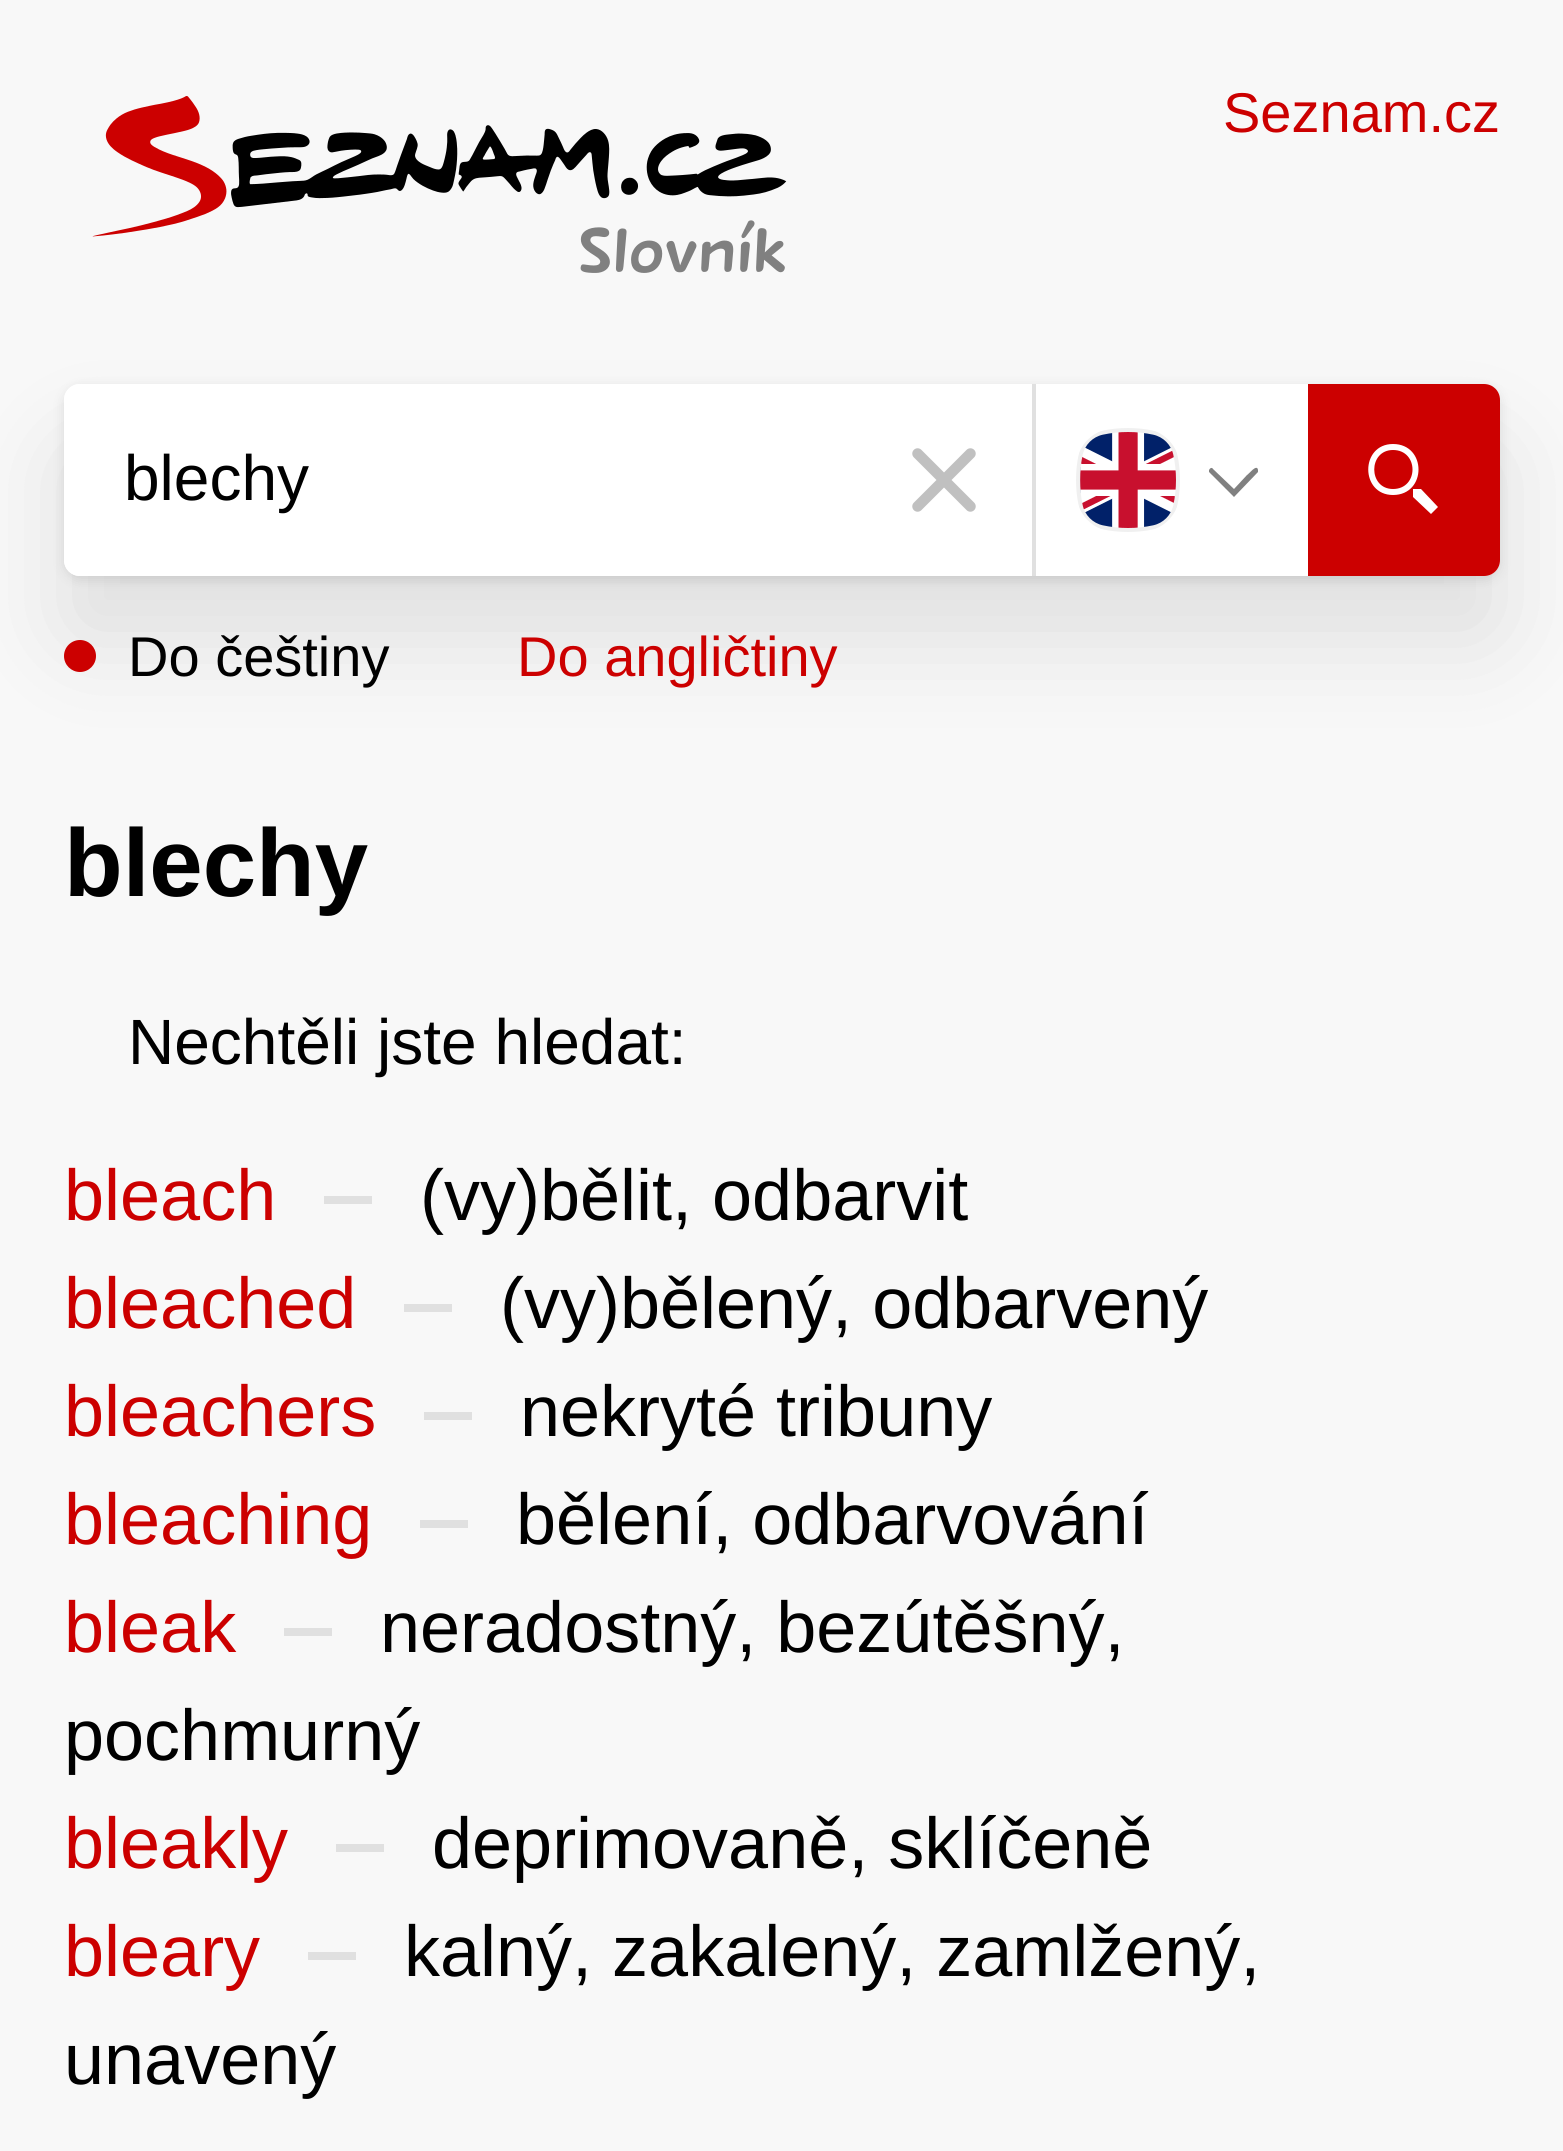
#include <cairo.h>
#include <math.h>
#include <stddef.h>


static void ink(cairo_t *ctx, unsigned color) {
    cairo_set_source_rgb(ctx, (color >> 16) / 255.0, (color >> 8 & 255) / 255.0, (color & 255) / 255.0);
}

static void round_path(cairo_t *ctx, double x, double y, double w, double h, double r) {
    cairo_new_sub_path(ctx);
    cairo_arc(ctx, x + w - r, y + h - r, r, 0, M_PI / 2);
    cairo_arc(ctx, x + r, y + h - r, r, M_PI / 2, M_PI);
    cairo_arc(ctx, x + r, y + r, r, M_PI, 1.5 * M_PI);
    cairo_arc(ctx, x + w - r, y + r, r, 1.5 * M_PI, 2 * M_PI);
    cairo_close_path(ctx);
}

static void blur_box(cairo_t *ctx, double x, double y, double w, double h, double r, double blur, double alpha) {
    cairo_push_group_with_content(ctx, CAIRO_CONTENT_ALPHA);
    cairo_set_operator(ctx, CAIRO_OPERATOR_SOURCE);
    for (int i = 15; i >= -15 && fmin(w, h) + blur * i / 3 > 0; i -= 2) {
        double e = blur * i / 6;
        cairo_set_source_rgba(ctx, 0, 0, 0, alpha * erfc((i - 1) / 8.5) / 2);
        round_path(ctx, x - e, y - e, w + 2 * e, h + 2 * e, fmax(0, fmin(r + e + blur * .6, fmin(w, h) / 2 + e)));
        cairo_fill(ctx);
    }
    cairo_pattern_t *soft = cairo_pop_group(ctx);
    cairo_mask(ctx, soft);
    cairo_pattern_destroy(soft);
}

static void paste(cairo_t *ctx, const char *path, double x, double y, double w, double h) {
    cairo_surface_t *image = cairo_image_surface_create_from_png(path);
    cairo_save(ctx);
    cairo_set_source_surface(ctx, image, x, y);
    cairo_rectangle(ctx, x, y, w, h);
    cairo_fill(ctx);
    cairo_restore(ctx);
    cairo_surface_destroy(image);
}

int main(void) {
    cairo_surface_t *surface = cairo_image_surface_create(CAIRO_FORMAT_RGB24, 1563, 2151);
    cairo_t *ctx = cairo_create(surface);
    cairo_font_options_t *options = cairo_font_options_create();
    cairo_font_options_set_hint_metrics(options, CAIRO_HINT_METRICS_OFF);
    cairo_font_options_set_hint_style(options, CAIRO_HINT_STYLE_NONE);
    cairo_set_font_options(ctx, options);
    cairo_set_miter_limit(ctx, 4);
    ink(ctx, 0xF8F8F8);
    cairo_paint(ctx);
    paste(ctx, "media/1.png", 92, 96, 695, 177);
    cairo_select_font_face(ctx, "Liberation Sans", CAIRO_FONT_SLANT_NORMAL, CAIRO_FONT_WEIGHT_NORMAL);
    cairo_set_font_size(ctx, 56);
    ink(ctx, 0xCC0000);
    cairo_move_to(ctx, 1223, 132);
    cairo_show_text(ctx, "Seznam.cz");
    ink(ctx, 0x000000);
    blur_box(ctx, 64, 388, 1436, 192, 16, 6, 0.1);
    blur_box(ctx, 64, 448, 1436, 192, 16, 48, 0.1);
    ink(ctx, 0xFFFFFF);
    round_path(ctx, 64, 384, 1436, 192, 16);
    cairo_fill(ctx);
    cairo_new_path(ctx);
    cairo_move_to(ctx, 80, 384);
    cairo_line_to(ctx, 856, 384);
    cairo_line_to(ctx, 856, 576);
    cairo_line_to(ctx, 80, 576);
    cairo_curve_to(ctx, 71, 576, 64, 569, 64, 560);
    cairo_line_to(ctx, 64, 400);
    cairo_curve_to(ctx, 64, 391, 71, 384, 80, 384);
    cairo_close_path(ctx);
    cairo_fill(ctx);
    cairo_set_font_size(ctx, 64);
    ink(ctx, 0x000000);
    cairo_move_to(ctx, 124, 500);
    cairo_show_text(ctx, "blechy");
    paste(ctx, "media/2.png", 912, 448, 64, 64);
    ink(ctx, 0xE0E0E0);
    cairo_rectangle(ctx, 1032, 384, 4, 192);
    cairo_fill(ctx);
    paste(ctx, "media/3.png", 1076, 428, 104, 104);
    ink(ctx, 0x808080);
    cairo_new_path(ctx);
    cairo_move_to(ctx, 1213, 469);
    cairo_curve_to(ctx, 1212, 467, 1210, 468, 1209, 470);
    cairo_line_to(ctx, 1209, 472);
    cairo_line_to(ctx, 1234, 497);
    cairo_line_to(ctx, 1258, 472);
    cairo_line_to(ctx, 1258, 470);
    cairo_curve_to(ctx, 1257, 463, 1248, 475, 1247, 475);
    cairo_line_to(ctx, 1234, 489);
    cairo_close_path(ctx);
    cairo_fill(ctx);
    ink(ctx, 0xCC0000);
    cairo_new_path(ctx);
    cairo_move_to(ctx, 1308, 384);
    cairo_line_to(ctx, 1484, 384);
    cairo_curve_to(ctx, 1493, 384, 1500, 391, 1500, 400);
    cairo_line_to(ctx, 1500, 560);
    cairo_curve_to(ctx, 1500, 569, 1493, 576, 1484, 576);
    cairo_line_to(ctx, 1308, 576);
    cairo_close_path(ctx);
    cairo_fill(ctx);
    ink(ctx, 0xFFFFFF);
    cairo_new_path(ctx);
    cairo_move_to(ctx, 1393, 444);
    cairo_curve_to(ctx, 1427, 444, 1427, 495, 1393, 495);
    cairo_curve_to(ctx, 1360, 495, 1360, 444, 1393, 444);
    cairo_close_path(ctx);
    cairo_move_to(ctx, 1393, 450);
    cairo_curve_to(ctx, 1368, 450, 1368, 489, 1393, 489);
    cairo_curve_to(ctx, 1419, 489, 1419, 450, 1393, 450);
    cairo_close_path(ctx);
    cairo_move_to(ctx, 1413, 497);
    cairo_line_to(ctx, 1413, 489);
    cairo_line_to(ctx, 1421, 489);
    cairo_line_to(ctx, 1438, 507);
    cairo_line_to(ctx, 1431, 514);
    cairo_close_path(ctx);
    cairo_fill(ctx);
    ink(ctx, 0xCC0000);
    cairo_arc(ctx, 80, 656, 16, 0, 2 * M_PI);
    cairo_fill(ctx);
    cairo_set_font_size(ctx, 56);
    ink(ctx, 0x000000);
    cairo_move_to(ctx, 128, 676);
    cairo_show_text(ctx, "Do češtiny");
    ink(ctx, 0xCC0000);
    cairo_move_to(ctx, 517, 676);
    cairo_show_text(ctx, "Do angličtiny");
    cairo_select_font_face(ctx, "Liberation Sans", CAIRO_FONT_SLANT_NORMAL, CAIRO_FONT_WEIGHT_BOLD);
    cairo_set_font_size(ctx, 96);
    ink(ctx, 0x000000);
    cairo_move_to(ctx, 64, 896);
    cairo_show_text(ctx, "blechy");
    cairo_select_font_face(ctx, "Liberation Sans", CAIRO_FONT_SLANT_NORMAL, CAIRO_FONT_WEIGHT_NORMAL);
    cairo_set_font_size(ctx, 64);
    cairo_move_to(ctx, 128, 1064);
    cairo_show_text(ctx, "Nechtěli jste hledat:");
    cairo_set_font_size(ctx, 72);
    ink(ctx, 0xCC0000);
    cairo_move_to(ctx, 64, 1220);
    cairo_show_text(ctx, "bleach");
    ink(ctx, 0xE0E0E0);
    cairo_rectangle(ctx, 324, 1196, 48, 8);
    cairo_fill(ctx);
    ink(ctx, 0x000000);
    cairo_move_to(ctx, 420, 1220);
    cairo_show_text(ctx, "(vy)bělit, odbarvit");
    ink(ctx, 0xCC0000);
    cairo_move_to(ctx, 64, 1328);
    cairo_show_text(ctx, "bleached");
    ink(ctx, 0xE0E0E0);
    cairo_rectangle(ctx, 404, 1304, 48, 8);
    cairo_fill(ctx);
    ink(ctx, 0x000000);
    cairo_move_to(ctx, 500, 1328);
    cairo_show_text(ctx, "(vy)bělený, odbarvený");
    ink(ctx, 0xCC0000);
    cairo_move_to(ctx, 64, 1436);
    cairo_show_text(ctx, "bleachers");
    ink(ctx, 0xE0E0E0);
    cairo_rectangle(ctx, 424, 1412, 48, 8);
    cairo_fill(ctx);
    ink(ctx, 0x000000);
    cairo_move_to(ctx, 520, 1436);
    cairo_show_text(ctx, "nekryté tribuny");
    ink(ctx, 0xCC0000);
    cairo_move_to(ctx, 64, 1544);
    cairo_show_text(ctx, "bleaching");
    ink(ctx, 0xE0E0E0);
    cairo_rectangle(ctx, 420, 1520, 48, 8);
    cairo_fill(ctx);
    ink(ctx, 0x000000);
    cairo_move_to(ctx, 516, 1544);
    cairo_show_text(ctx, "bělení, odbarvování");
    ink(ctx, 0xCC0000);
    cairo_move_to(ctx, 64, 1652);
    cairo_show_text(ctx, "bleak");
    ink(ctx, 0xE0E0E0);
    cairo_rectangle(ctx, 284, 1628, 48, 8);
    cairo_fill(ctx);
    ink(ctx, 0x000000);
    cairo_move_to(ctx, 380, 1652);
    cairo_show_text(ctx, "neradostný, bezútěšný,");
    cairo_move_to(ctx, 64, 1760);
    cairo_show_text(ctx, "pochmurný");
    ink(ctx, 0xCC0000);
    cairo_move_to(ctx, 64, 1868);
    cairo_show_text(ctx, "bleakly");
    ink(ctx, 0xE0E0E0);
    cairo_rectangle(ctx, 336, 1844, 48, 8);
    cairo_fill(ctx);
    ink(ctx, 0x000000);
    cairo_move_to(ctx, 432, 1868);
    cairo_show_text(ctx, "deprimovaně, sklíčeně");
    ink(ctx, 0xCC0000);
    cairo_move_to(ctx, 64, 1976);
    cairo_show_text(ctx, "bleary");
    ink(ctx, 0xE0E0E0);
    cairo_rectangle(ctx, 308, 1952, 48, 8);
    cairo_fill(ctx);
    ink(ctx, 0x000000);
    cairo_move_to(ctx, 404, 1976);
    cairo_show_text(ctx, "kalný, zakalený, zamlžený,");
    cairo_move_to(ctx, 64, 2084);
    cairo_show_text(ctx, "unavený");
    cairo_surface_write_to_png(surface, "image.png");
    cairo_font_options_destroy(options);
    cairo_destroy(ctx);
    cairo_surface_destroy(surface);
    return 0;
}
